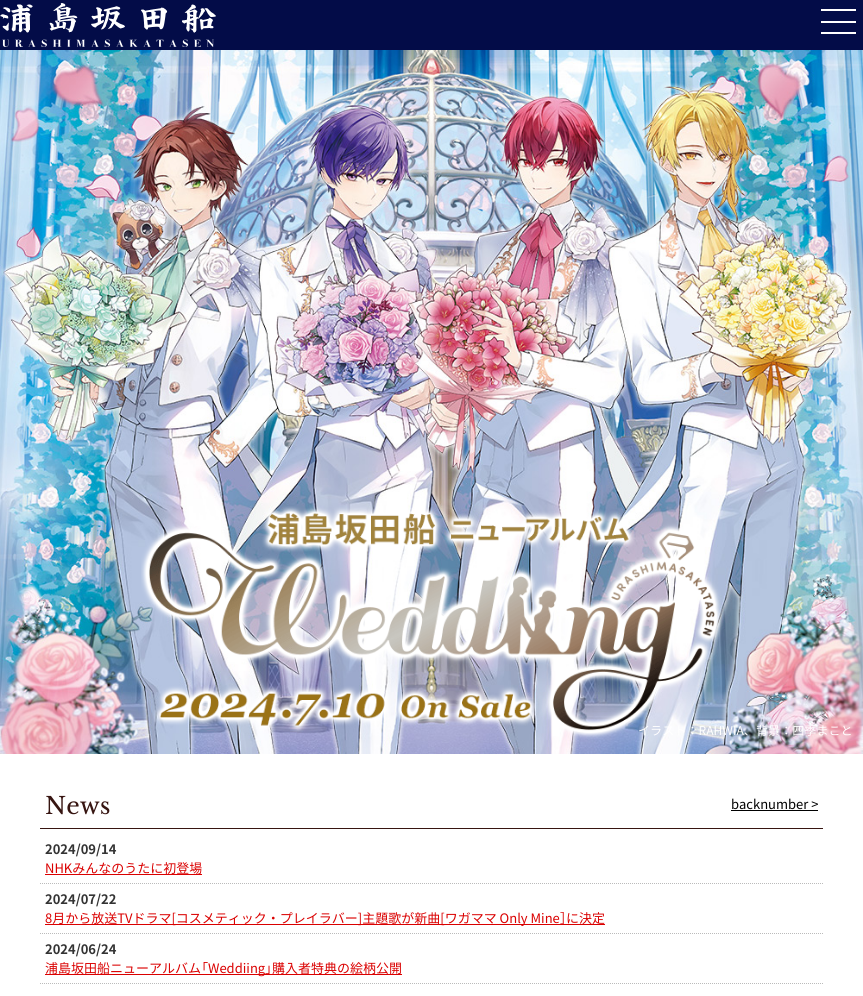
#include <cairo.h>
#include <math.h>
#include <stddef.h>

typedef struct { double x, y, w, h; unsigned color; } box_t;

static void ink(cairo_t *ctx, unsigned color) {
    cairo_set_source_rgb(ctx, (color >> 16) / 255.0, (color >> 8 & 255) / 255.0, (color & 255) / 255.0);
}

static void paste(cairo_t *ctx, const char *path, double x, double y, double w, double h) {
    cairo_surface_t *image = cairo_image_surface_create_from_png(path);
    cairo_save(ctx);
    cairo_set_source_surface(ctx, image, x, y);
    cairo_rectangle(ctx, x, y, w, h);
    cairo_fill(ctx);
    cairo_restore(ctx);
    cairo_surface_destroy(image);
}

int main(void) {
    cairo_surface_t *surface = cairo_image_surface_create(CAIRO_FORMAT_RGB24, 863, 996);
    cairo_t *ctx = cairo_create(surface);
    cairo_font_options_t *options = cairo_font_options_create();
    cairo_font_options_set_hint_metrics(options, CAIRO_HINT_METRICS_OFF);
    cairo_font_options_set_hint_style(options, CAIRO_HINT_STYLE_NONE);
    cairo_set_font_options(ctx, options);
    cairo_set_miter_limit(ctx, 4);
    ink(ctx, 0xFFFFFF);
    cairo_paint(ctx);
    ink(ctx, 0x030C48);
    cairo_rectangle(ctx, 0, 0, 863, 50);
    cairo_fill(ctx);
    paste(ctx, "media/1.png", 0, 3, 216, 44);
    {
        static const box_t items[] = {
            {821, 9, 35, 2, 0xFFFFFF},
            {821, 21, 35, 2, 0xFFFFFF},
            {821, 32, 35, 2, 0xFFFFFF},
        };
        for (size_t i = 0; i < sizeof items / sizeof *items; i++) {
            ink(ctx, items[i].color);
            cairo_rectangle(ctx, items[i].x, items[i].y, items[i].w, items[i].h);
            cairo_fill(ctx);
        }
    }
    paste(ctx, "media/2.png", 0, 50, 863, 704);
    paste(ctx, "media/3.png", 141, 506, 582, 233);
    cairo_select_font_face(ctx, "Noto Sans JP", CAIRO_FONT_SLANT_NORMAL, CAIRO_FONT_WEIGHT_NORMAL);
    cairo_set_font_size(ctx, 12.1);
    cairo_move_to(ctx, 638, 735);
    cairo_show_text(ctx, "イラスト：RAHWIA、背景：四季まこと");
    ink(ctx, 0x371511);
    cairo_rectangle(ctx, 40, 828, 783, 1);
    cairo_fill(ctx);
    cairo_select_font_face(ctx, "Libre Baskerville", CAIRO_FONT_SLANT_NORMAL, CAIRO_FONT_WEIGHT_NORMAL);
    cairo_set_font_size(ctx, 23.5);
    cairo_move_to(ctx, 45, 814);
    cairo_show_text(ctx, "News");
    cairo_select_font_face(ctx, "Noto Sans JP", CAIRO_FONT_SLANT_NORMAL, CAIRO_FONT_WEIGHT_NORMAL);
    cairo_set_font_size(ctx, 13);
    ink(ctx, 0x000000);
    cairo_move_to(ctx, 731, 809);
    cairo_show_text(ctx, "backnumber >");
    cairo_rectangle(ctx, 731, 810, 87, 1);
    cairo_fill(ctx);
    cairo_select_font_face(ctx, "Noto Sans JP", CAIRO_FONT_SLANT_NORMAL, CAIRO_FONT_WEIGHT_BOLD);
    ink(ctx, 0x333333);
    cairo_move_to(ctx, 45, 854);
    cairo_show_text(ctx, "2024/09/14");
    cairo_new_path(ctx);
    cairo_move_to(ctx, 40, 883.5);
    cairo_line_to(ctx, 823, 883.5);
    ink(ctx, 0xBBBBBB);
    cairo_set_line_width(ctx, 1);
    cairo_set_dash(ctx, (double[]){1, 1}, 2, 0);
    cairo_stroke(ctx);
    cairo_select_font_face(ctx, "Noto Sans JP", CAIRO_FONT_SLANT_NORMAL, CAIRO_FONT_WEIGHT_NORMAL);
    ink(ctx, 0xDA0000);
    cairo_move_to(ctx, 45, 873);
    cairo_show_text(ctx, "NHKみんなのうたに初登場");
    cairo_rectangle(ctx, 45, 874, 157, 1);
    cairo_fill(ctx);
    cairo_select_font_face(ctx, "Noto Sans JP", CAIRO_FONT_SLANT_NORMAL, CAIRO_FONT_WEIGHT_BOLD);
    ink(ctx, 0x333333);
    cairo_move_to(ctx, 45, 904);
    cairo_show_text(ctx, "2024/07/22");
    cairo_new_path(ctx);
    cairo_move_to(ctx, 40, 933.5);
    cairo_line_to(ctx, 823, 933.5);
    ink(ctx, 0xBBBBBB);
    cairo_stroke(ctx);
    ink(ctx, 0xDA0000);
    cairo_rectangle(ctx, 45, 924, 560, 1);
    cairo_fill(ctx);
    cairo_select_font_face(ctx, "Noto Sans JP", CAIRO_FONT_SLANT_NORMAL, CAIRO_FONT_WEIGHT_NORMAL);
    cairo_move_to(ctx, 45, 923);
    cairo_show_text(ctx, "8月から放送TVドラマ[コスメティック・プレイラバー]主題歌が新曲[ワガママ Only Mine");
    cairo_select_font_face(ctx, "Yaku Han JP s", CAIRO_FONT_SLANT_NORMAL, CAIRO_FONT_WEIGHT_NORMAL);
    cairo_move_to(ctx, 560, 923);
    cairo_show_text(ctx, "］");
    cairo_select_font_face(ctx, "Noto Sans JP", CAIRO_FONT_SLANT_NORMAL, CAIRO_FONT_WEIGHT_NORMAL);
    cairo_move_to(ctx, 566, 923);
    cairo_show_text(ctx, "に決定");
    cairo_select_font_face(ctx, "Noto Sans JP", CAIRO_FONT_SLANT_NORMAL, CAIRO_FONT_WEIGHT_BOLD);
    ink(ctx, 0x333333);
    cairo_move_to(ctx, 45, 954);
    cairo_show_text(ctx, "2024/06/24");
    cairo_new_path(ctx);
    cairo_move_to(ctx, 40, 983.5);
    cairo_line_to(ctx, 823, 983.5);
    ink(ctx, 0xBBBBBB);
    cairo_stroke(ctx);
    cairo_select_font_face(ctx, "Noto Sans JP", CAIRO_FONT_SLANT_NORMAL, CAIRO_FONT_WEIGHT_NORMAL);
    ink(ctx, 0xDA0000);
    cairo_move_to(ctx, 45, 973);
    cairo_show_text(ctx, "浦島坂田船ニューアルバム");
    cairo_select_font_face(ctx, "Yaku Han JP s", CAIRO_FONT_SLANT_NORMAL, CAIRO_FONT_WEIGHT_NORMAL);
    cairo_move_to(ctx, 201, 973);
    cairo_show_text(ctx, "「");
    cairo_rectangle(ctx, 45, 974, 357, 1);
    cairo_fill(ctx);
    cairo_select_font_face(ctx, "Noto Sans JP", CAIRO_FONT_SLANT_NORMAL, CAIRO_FONT_WEIGHT_NORMAL);
    cairo_move_to(ctx, 208, 973);
    cairo_show_text(ctx, "Weddiing");
    cairo_select_font_face(ctx, "Yaku Han JP s", CAIRO_FONT_SLANT_NORMAL, CAIRO_FONT_WEIGHT_NORMAL);
    cairo_move_to(ctx, 265, 973);
    cairo_show_text(ctx, "」");
    cairo_select_font_face(ctx, "Noto Sans JP", CAIRO_FONT_SLANT_NORMAL, CAIRO_FONT_WEIGHT_NORMAL);
    cairo_move_to(ctx, 272, 973);
    cairo_show_text(ctx, "購入者特典の絵柄公開");
    cairo_surface_write_to_png(surface, "image.png");
    cairo_font_options_destroy(options);
    cairo_destroy(ctx);
    cairo_surface_destroy(surface);
    return 0;
}
